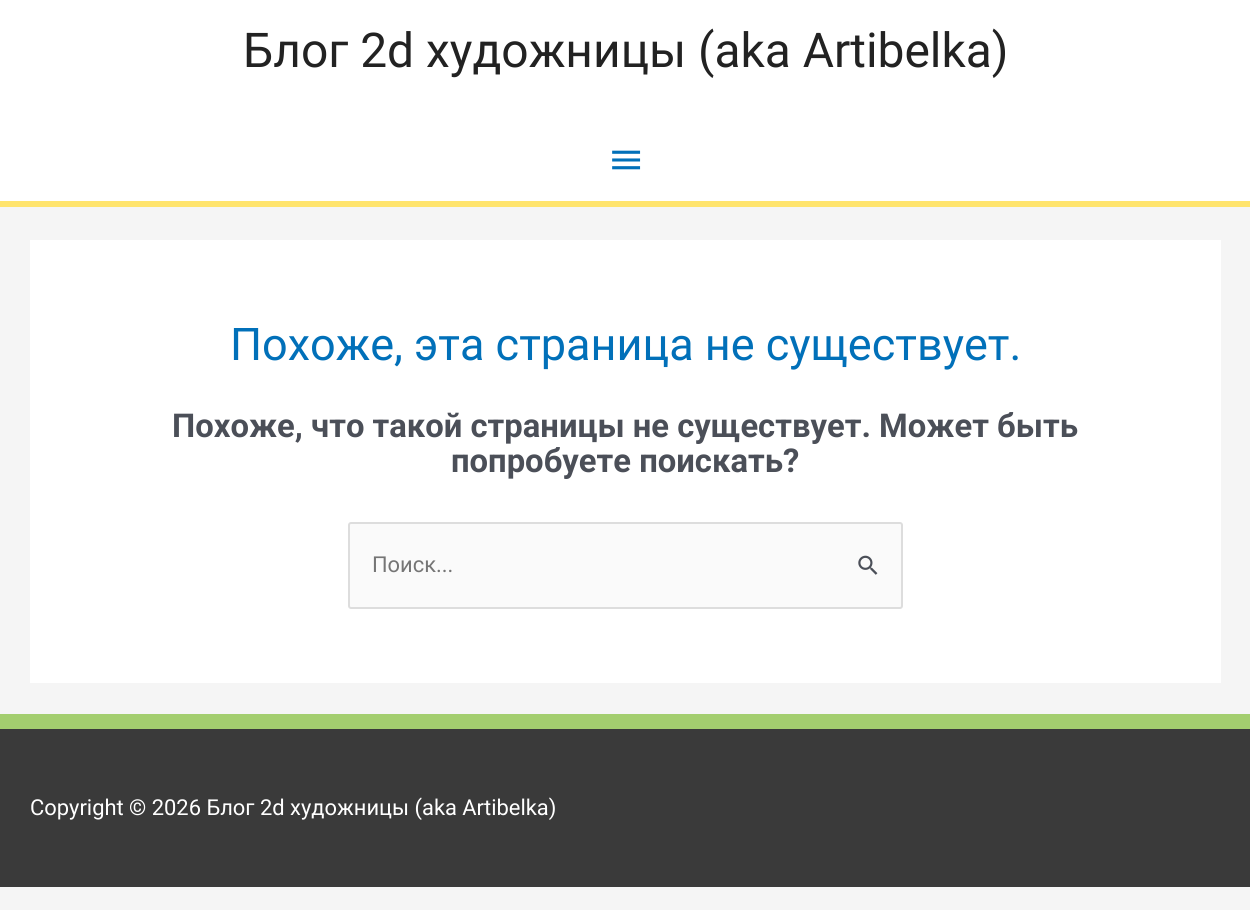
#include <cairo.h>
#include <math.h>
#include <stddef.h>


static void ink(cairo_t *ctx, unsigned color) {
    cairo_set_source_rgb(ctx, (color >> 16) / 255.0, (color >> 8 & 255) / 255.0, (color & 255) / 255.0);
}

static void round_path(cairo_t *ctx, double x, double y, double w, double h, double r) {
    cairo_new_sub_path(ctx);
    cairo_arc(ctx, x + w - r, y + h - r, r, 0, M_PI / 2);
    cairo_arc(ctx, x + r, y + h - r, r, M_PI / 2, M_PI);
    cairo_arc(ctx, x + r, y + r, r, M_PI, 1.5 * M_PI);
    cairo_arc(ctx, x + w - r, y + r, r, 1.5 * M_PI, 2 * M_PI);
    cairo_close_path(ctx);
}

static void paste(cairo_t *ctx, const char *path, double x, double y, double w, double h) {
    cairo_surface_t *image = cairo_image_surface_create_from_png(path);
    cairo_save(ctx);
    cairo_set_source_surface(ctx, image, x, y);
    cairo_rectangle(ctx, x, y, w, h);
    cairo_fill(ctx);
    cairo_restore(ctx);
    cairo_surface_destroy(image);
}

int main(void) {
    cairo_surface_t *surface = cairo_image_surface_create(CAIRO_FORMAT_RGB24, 1250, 910);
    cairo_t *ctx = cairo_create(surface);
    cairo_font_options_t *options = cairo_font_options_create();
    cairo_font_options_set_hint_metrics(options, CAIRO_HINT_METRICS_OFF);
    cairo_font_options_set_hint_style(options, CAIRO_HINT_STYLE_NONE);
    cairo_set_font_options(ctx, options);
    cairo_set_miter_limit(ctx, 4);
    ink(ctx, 0xF5F5F5);
    cairo_paint(ctx);
    ink(ctx, 0xFFFFFF);
    cairo_rectangle(ctx, 0, 0, 1250, 201);
    cairo_fill(ctx);
    ink(ctx, 0xFFE46D);
    cairo_rectangle(ctx, 0, 201, 1250, 6);
    cairo_fill(ctx);
    cairo_select_font_face(ctx, "Roboto", CAIRO_FONT_SLANT_NORMAL, CAIRO_FONT_WEIGHT_NORMAL);
    cairo_set_font_size(ctx, 47.9);
    ink(ctx, 0x222222);
    cairo_move_to(ctx, 243, 67);
    cairo_show_text(ctx, "Блог 2d художницы (aka Artibelka)");
    paste(ctx, "media/1.png", 612, 150, 29, 20);
    ink(ctx, 0xFFFFFF);
    cairo_rectangle(ctx, 30, 240, 1191, 443);
    cairo_fill(ctx);
    cairo_set_font_size(ctx, 45);
    ink(ctx, 0x0170B9);
    cairo_move_to(ctx, 230, 360);
    cairo_show_text(ctx, "Похоже, эта страница не существует.");
    cairo_select_font_face(ctx, "Roboto", CAIRO_FONT_SLANT_NORMAL, CAIRO_FONT_WEIGHT_BOLD);
    cairo_set_font_size(ctx, 32.8);
    ink(ctx, 0x4B4F58);
    cairo_move_to(ctx, 172, 437);
    cairo_show_text(ctx, "Похоже, что такой страницы не существует. Может быть");
    cairo_move_to(ctx, 451, 472);
    cairo_show_text(ctx, "попробуете поискать?");
    ink(ctx, 0xFAFAFA);
    round_path(ctx, 349, 523, 553, 85, 2);
    cairo_fill_preserve(ctx);
    ink(ctx, 0xDDDDDD);
    cairo_stroke(ctx);
    cairo_select_font_face(ctx, "Roboto", CAIRO_FONT_SLANT_NORMAL, CAIRO_FONT_WEIGHT_NORMAL);
    cairo_set_font_size(ctx, 21.9);
    ink(ctx, 0x757575);
    cairo_move_to(ctx, 372, 572);
    cairo_show_text(ctx, "Поиск...");
    paste(ctx, "media/2.png", 858, 555, 20, 20);
    ink(ctx, 0xA3CE6F);
    cairo_rectangle(ctx, 0, 714, 1250, 15);
    cairo_fill(ctx);
    ink(ctx, 0x3A3A3A);
    cairo_rectangle(ctx, 0, 729, 1250, 158);
    cairo_fill(ctx);
    ink(ctx, 0xFFFFFF);
    cairo_move_to(ctx, 30, 815);
    cairo_show_text(ctx, "Copyright © 2026 Блог 2d художницы (aka Artibelka)");
    cairo_surface_write_to_png(surface, "image.png");
    cairo_font_options_destroy(options);
    cairo_destroy(ctx);
    cairo_surface_destroy(surface);
    return 0;
}
